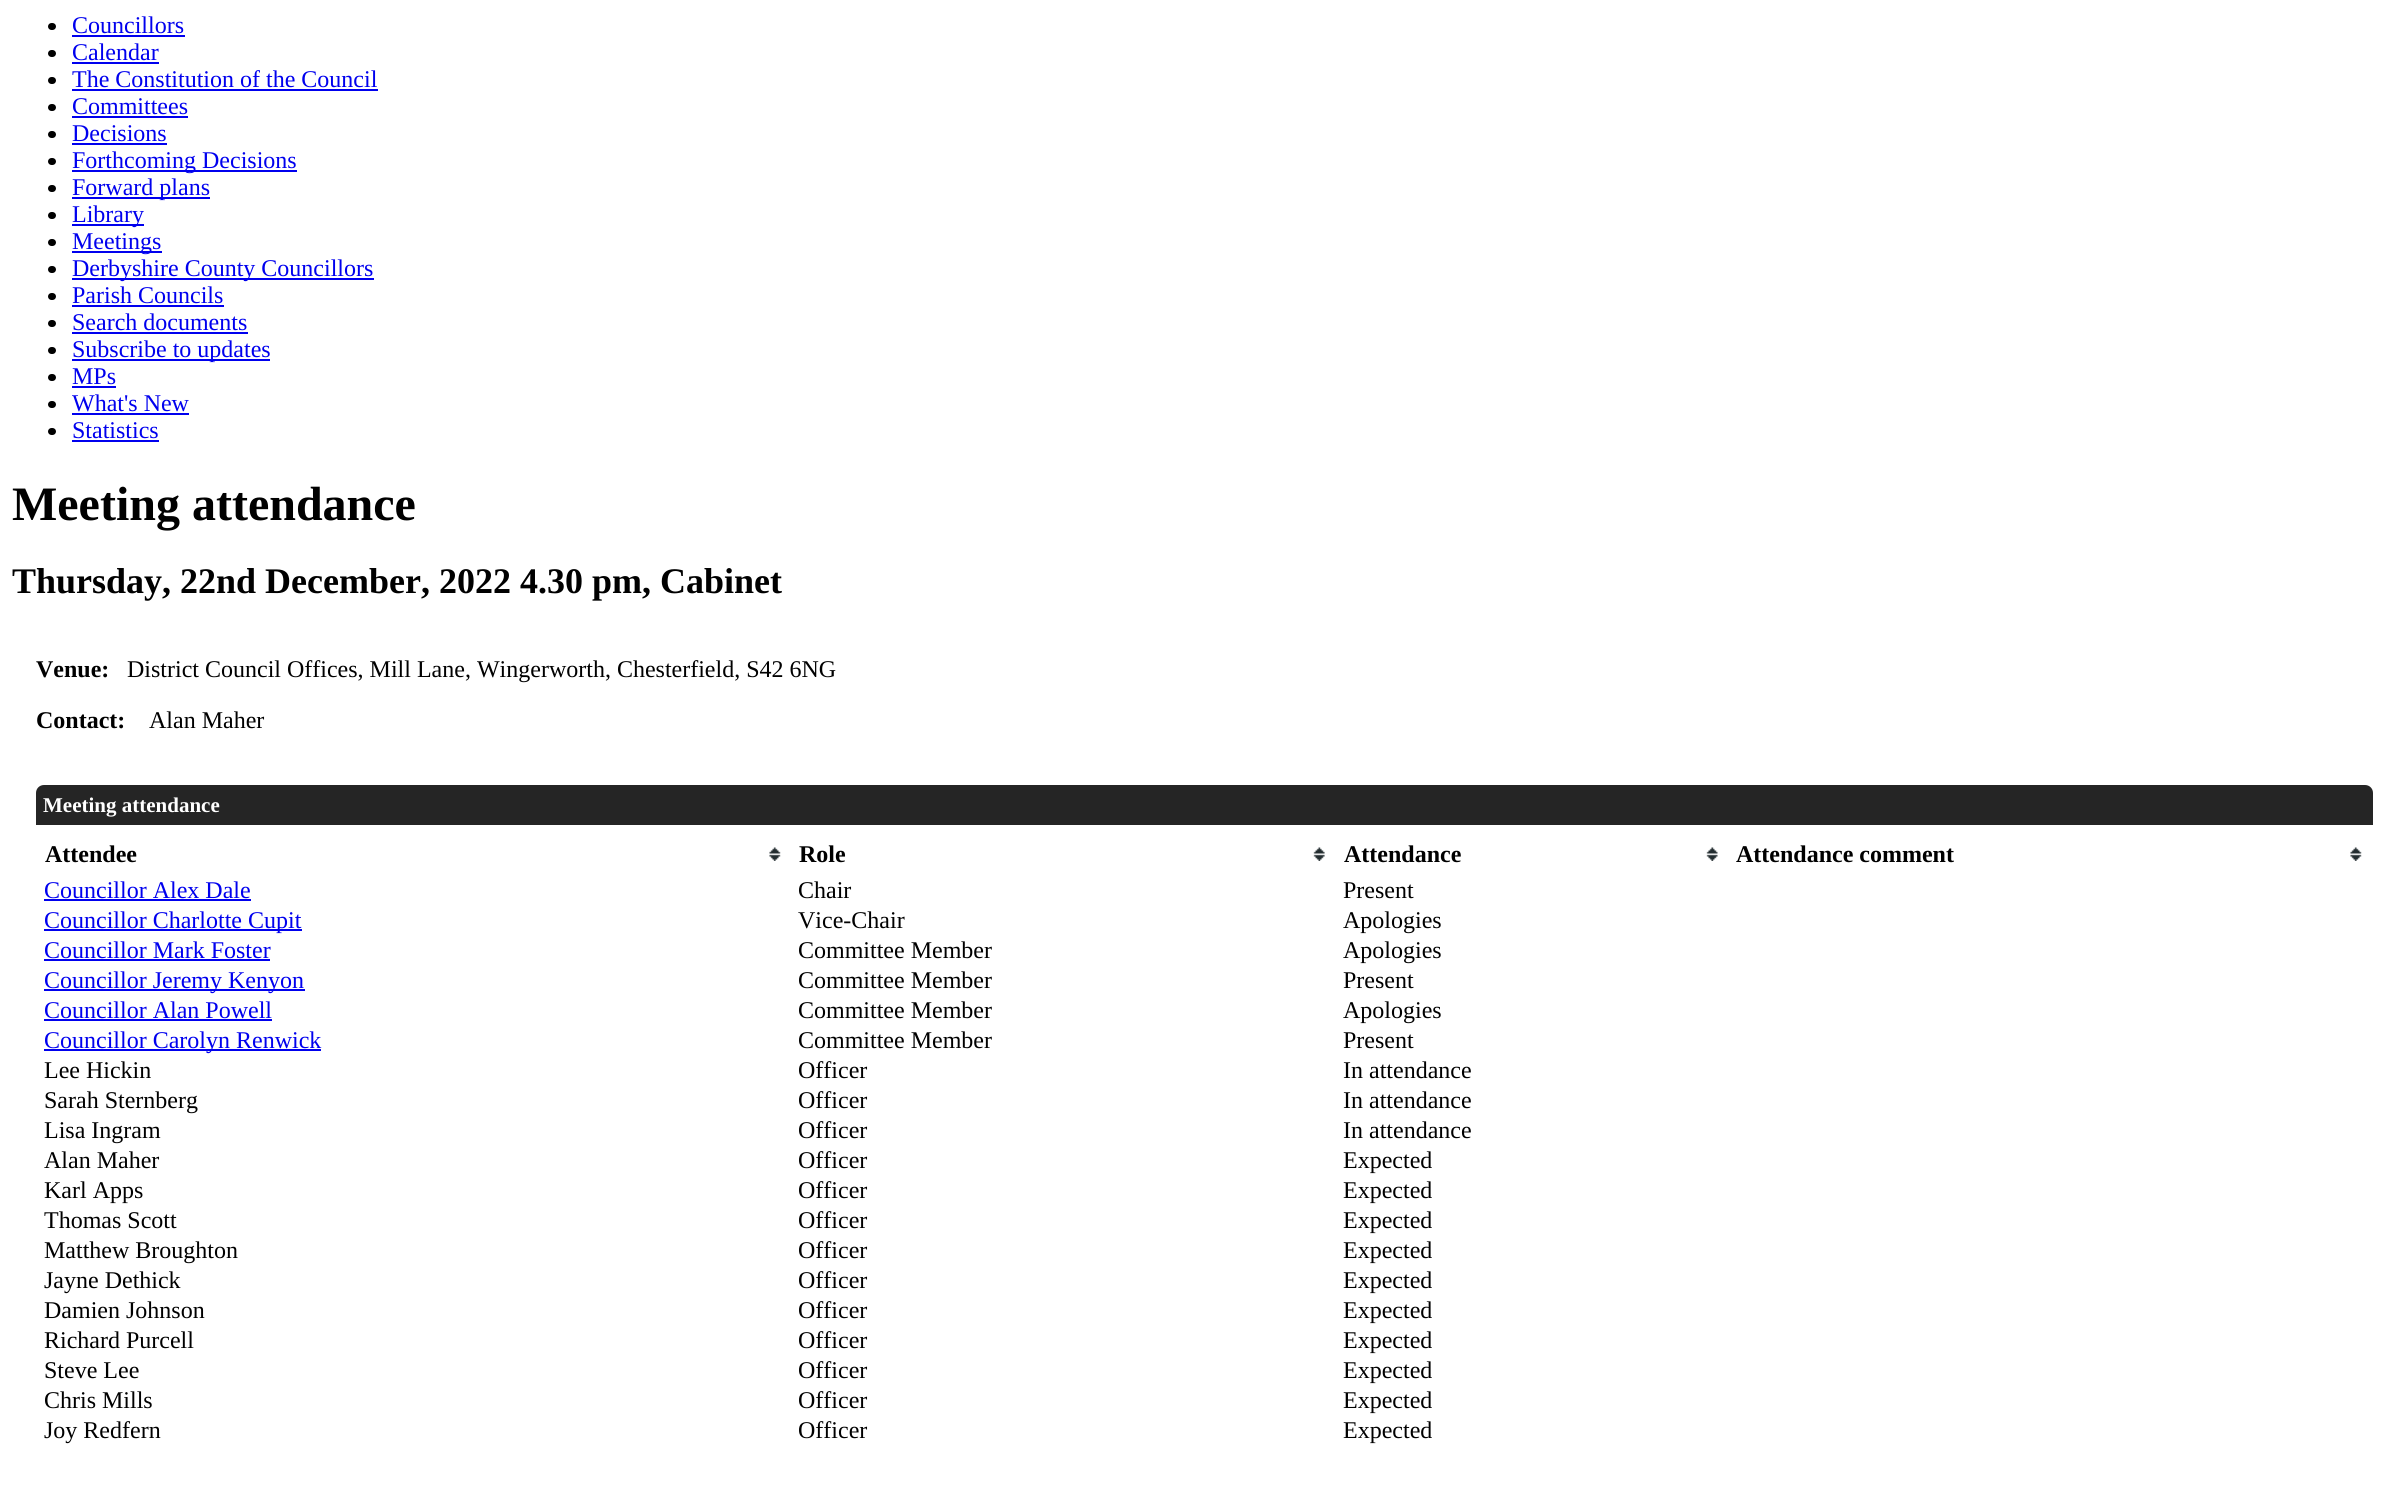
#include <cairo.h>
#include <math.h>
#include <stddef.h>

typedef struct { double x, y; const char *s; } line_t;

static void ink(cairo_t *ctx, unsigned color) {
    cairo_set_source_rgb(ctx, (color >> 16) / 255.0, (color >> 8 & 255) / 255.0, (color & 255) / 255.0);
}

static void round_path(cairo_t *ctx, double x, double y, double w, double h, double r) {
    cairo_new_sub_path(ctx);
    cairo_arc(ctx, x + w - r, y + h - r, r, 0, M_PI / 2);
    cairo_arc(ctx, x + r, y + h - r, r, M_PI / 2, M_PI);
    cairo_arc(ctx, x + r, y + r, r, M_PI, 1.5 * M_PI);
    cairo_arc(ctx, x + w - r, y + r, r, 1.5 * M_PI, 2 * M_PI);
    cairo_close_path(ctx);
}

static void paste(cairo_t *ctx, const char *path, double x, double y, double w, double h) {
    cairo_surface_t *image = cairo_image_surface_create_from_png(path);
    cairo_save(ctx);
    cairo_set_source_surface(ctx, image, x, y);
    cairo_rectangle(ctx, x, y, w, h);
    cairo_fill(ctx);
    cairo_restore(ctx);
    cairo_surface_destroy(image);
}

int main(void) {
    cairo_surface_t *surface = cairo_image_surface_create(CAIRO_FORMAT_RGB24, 2384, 1485);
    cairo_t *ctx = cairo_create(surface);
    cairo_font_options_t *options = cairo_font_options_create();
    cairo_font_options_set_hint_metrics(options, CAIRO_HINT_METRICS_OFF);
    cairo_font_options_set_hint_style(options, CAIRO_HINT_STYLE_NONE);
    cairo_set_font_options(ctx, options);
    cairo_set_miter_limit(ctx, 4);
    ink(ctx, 0xFFFFFF);
    cairo_paint(ctx);
    ink(ctx, 0x000000);
    round_path(ctx, 48, 23, 8, 7, 3.5);
    cairo_fill(ctx);
    cairo_select_font_face(ctx, "Liberation Serif", CAIRO_FONT_SLANT_NORMAL, CAIRO_FONT_WEIGHT_NORMAL);
    cairo_set_font_size(ctx, 24);
    ink(ctx, 0x0000EE);
    cairo_move_to(ctx, 72, 33);
    cairo_show_text(ctx, "Councillors");
    cairo_rectangle(ctx, 72, 35, 113, 2);
    cairo_fill(ctx);
    ink(ctx, 0x000000);
    round_path(ctx, 48, 50, 8, 7, 3.5);
    cairo_fill(ctx);
    ink(ctx, 0x0000EE);
    cairo_move_to(ctx, 72, 60);
    cairo_show_text(ctx, "Calendar");
    cairo_rectangle(ctx, 72, 62, 87, 2);
    cairo_fill(ctx);
    ink(ctx, 0x000000);
    round_path(ctx, 48, 77, 8, 7, 3.5);
    cairo_fill(ctx);
    ink(ctx, 0x0000EE);
    cairo_move_to(ctx, 72, 87);
    cairo_show_text(ctx, "The Constitution of the Council");
    cairo_rectangle(ctx, 72, 89, 306, 2);
    cairo_fill(ctx);
    ink(ctx, 0x000000);
    round_path(ctx, 48, 104, 8, 7, 3.5);
    cairo_fill(ctx);
    ink(ctx, 0x0000EE);
    cairo_move_to(ctx, 72, 114);
    cairo_show_text(ctx, "Committees");
    cairo_rectangle(ctx, 72, 116, 116, 2);
    cairo_fill(ctx);
    ink(ctx, 0x000000);
    round_path(ctx, 48, 131, 8, 7, 3.5);
    cairo_fill(ctx);
    ink(ctx, 0x0000EE);
    cairo_move_to(ctx, 72, 141);
    cairo_show_text(ctx, "Decisions");
    cairo_rectangle(ctx, 72, 143, 95, 2);
    cairo_fill(ctx);
    ink(ctx, 0x000000);
    round_path(ctx, 48, 158, 8, 7, 3.5);
    cairo_fill(ctx);
    ink(ctx, 0x0000EE);
    cairo_rectangle(ctx, 72, 170, 225, 2);
    cairo_fill(ctx);
    cairo_move_to(ctx, 72, 168);
    cairo_show_text(ctx, "Forthcoming Decisions");
    ink(ctx, 0x000000);
    round_path(ctx, 48, 185, 8, 7, 3.5);
    cairo_fill(ctx);
    ink(ctx, 0x0000EE);
    cairo_rectangle(ctx, 72, 197, 138, 2);
    cairo_fill(ctx);
    cairo_move_to(ctx, 72, 195);
    cairo_show_text(ctx, "Forward plans");
    ink(ctx, 0x000000);
    round_path(ctx, 48, 212, 8, 7, 3.5);
    cairo_fill(ctx);
    ink(ctx, 0x0000EE);
    cairo_rectangle(ctx, 72, 224, 72, 2);
    cairo_fill(ctx);
    cairo_move_to(ctx, 72, 222);
    cairo_show_text(ctx, "Library");
    ink(ctx, 0x000000);
    round_path(ctx, 48, 239, 8, 7, 3.5);
    cairo_fill(ctx);
    ink(ctx, 0x0000EE);
    cairo_rectangle(ctx, 72, 251, 90, 2);
    cairo_fill(ctx);
    cairo_move_to(ctx, 72, 249);
    cairo_show_text(ctx, "Meetings");
    ink(ctx, 0x000000);
    round_path(ctx, 48, 266, 8, 7, 3.5);
    cairo_fill(ctx);
    ink(ctx, 0x0000EE);
    cairo_rectangle(ctx, 72, 278, 302, 2);
    cairo_fill(ctx);
    cairo_move_to(ctx, 72, 276);
    cairo_show_text(ctx, "Derbyshire County Councillors");
    ink(ctx, 0x000000);
    round_path(ctx, 48, 293, 8, 7, 3.5);
    cairo_fill(ctx);
    ink(ctx, 0x0000EE);
    cairo_move_to(ctx, 72, 303);
    cairo_show_text(ctx, "Parish Councils");
    cairo_rectangle(ctx, 72, 305, 152, 2);
    cairo_fill(ctx);
    ink(ctx, 0x000000);
    round_path(ctx, 48, 320, 8, 7, 3.5);
    cairo_fill(ctx);
    ink(ctx, 0x0000EE);
    cairo_move_to(ctx, 72, 330);
    cairo_show_text(ctx, "Search documents");
    cairo_rectangle(ctx, 72, 332, 176, 2);
    cairo_fill(ctx);
    ink(ctx, 0x000000);
    round_path(ctx, 48, 347, 8, 7, 3.5);
    cairo_fill(ctx);
    ink(ctx, 0x0000EE);
    cairo_rectangle(ctx, 72, 359, 198, 2);
    cairo_fill(ctx);
    cairo_move_to(ctx, 72, 357);
    cairo_show_text(ctx, "Subscribe to updates");
    ink(ctx, 0x000000);
    round_path(ctx, 48, 374, 8, 7, 3.5);
    cairo_fill(ctx);
    ink(ctx, 0x0000EE);
    cairo_move_to(ctx, 72, 384);
    cairo_show_text(ctx, "MPs");
    cairo_rectangle(ctx, 72, 386, 44, 2);
    cairo_fill(ctx);
    ink(ctx, 0x000000);
    round_path(ctx, 48, 401, 8, 7, 3.5);
    cairo_fill(ctx);
    ink(ctx, 0x0000EE);
    cairo_move_to(ctx, 72, 411);
    cairo_show_text(ctx, "What's New");
    cairo_rectangle(ctx, 72, 413, 117, 2);
    cairo_fill(ctx);
    ink(ctx, 0x000000);
    round_path(ctx, 48, 428, 8, 7, 3.5);
    cairo_fill(ctx);
    ink(ctx, 0x0000EE);
    cairo_move_to(ctx, 72, 438);
    cairo_show_text(ctx, "Statistics");
    cairo_rectangle(ctx, 72, 440, 87, 2);
    cairo_fill(ctx);
    cairo_select_font_face(ctx, "Liberation Serif", CAIRO_FONT_SLANT_NORMAL, CAIRO_FONT_WEIGHT_BOLD);
    cairo_set_font_size(ctx, 48);
    ink(ctx, 0x000000);
    cairo_move_to(ctx, 12, 520);
    cairo_show_text(ctx, "Meeting attendance");
    cairo_set_font_size(ctx, 36);
    cairo_move_to(ctx, 12, 593);
    cairo_show_text(ctx, "Thursday, 22nd December, 2022 4.30 pm, Cabinet");
    cairo_set_font_size(ctx, 24);
    cairo_move_to(ctx, 36, 677);
    cairo_show_text(ctx, "Venue:");
    cairo_select_font_face(ctx, "Liberation Serif", CAIRO_FONT_SLANT_NORMAL, CAIRO_FONT_WEIGHT_NORMAL);
    cairo_move_to(ctx, 127, 677);
    cairo_show_text(ctx, "District Council Offices, Mill Lane, Wingerworth, Chesterfield, S42 6NG");
    cairo_select_font_face(ctx, "Liberation Serif", CAIRO_FONT_SLANT_NORMAL, CAIRO_FONT_WEIGHT_BOLD);
    cairo_move_to(ctx, 36, 728);
    cairo_show_text(ctx, "Contact:");
    cairo_select_font_face(ctx, "Liberation Serif", CAIRO_FONT_SLANT_NORMAL, CAIRO_FONT_WEIGHT_NORMAL);
    cairo_move_to(ctx, 149, 728);
    cairo_show_text(ctx, "Alan Maher");
    ink(ctx, 0x252525);
    cairo_new_path(ctx);
    cairo_move_to(ctx, 44, 785);
    cairo_line_to(ctx, 2365, 785);
    cairo_curve_to(ctx, 2369.5, 785, 2373, 788.5, 2373, 793);
    cairo_line_to(ctx, 2373, 825);
    cairo_line_to(ctx, 36, 825);
    cairo_line_to(ctx, 36, 793);
    cairo_curve_to(ctx, 36, 788.5, 39.5, 785, 44, 785);
    cairo_close_path(ctx);
    cairo_fill(ctx);
    cairo_select_font_face(ctx, "Liberation Serif", CAIRO_FONT_SLANT_NORMAL, CAIRO_FONT_WEIGHT_BOLD);
    cairo_set_font_size(ctx, 21);
    ink(ctx, 0xFFFFFF);
    cairo_move_to(ctx, 43, 812);
    cairo_show_text(ctx, "Meeting attendance");
    paste(ctx, "media/1.png", 769, 847, 12, 14);
    cairo_set_font_size(ctx, 24);
    ink(ctx, 0x000000);
    cairo_move_to(ctx, 45, 862);
    cairo_show_text(ctx, "Attendee");
    paste(ctx, "media/2.png", 1313, 847, 12, 14);
    cairo_move_to(ctx, 799, 862);
    cairo_show_text(ctx, "Role");
    paste(ctx, "media/3.png", 1706, 847, 12, 14);
    cairo_move_to(ctx, 1344, 862);
    cairo_show_text(ctx, "Attendance");
    paste(ctx, "media/1.png", 2350, 847, 12, 14);
    cairo_move_to(ctx, 1736, 862);
    cairo_show_text(ctx, "Attendance comment");
    cairo_select_font_face(ctx, "Liberation Serif", CAIRO_FONT_SLANT_NORMAL, CAIRO_FONT_WEIGHT_NORMAL);
    ink(ctx, 0x0000EE);
    cairo_move_to(ctx, 44, 898);
    cairo_show_text(ctx, "Councillor Alex Dale");
    cairo_rectangle(ctx, 44, 899, 207, 2);
    cairo_fill(ctx);
    ink(ctx, 0x000000);
    cairo_move_to(ctx, 798, 898);
    cairo_show_text(ctx, "Chair");
    cairo_move_to(ctx, 1343, 898);
    cairo_show_text(ctx, "Present");
    ink(ctx, 0x0000EE);
    cairo_rectangle(ctx, 44, 929, 258, 2);
    cairo_fill(ctx);
    cairo_move_to(ctx, 44, 928);
    cairo_show_text(ctx, "Councillor Charlotte Cupit");
    ink(ctx, 0x000000);
    cairo_move_to(ctx, 798, 928);
    cairo_show_text(ctx, "Vice-Chair");
    cairo_move_to(ctx, 1343, 928);
    cairo_show_text(ctx, "Apologies");
    ink(ctx, 0x0000EE);
    cairo_move_to(ctx, 44, 958);
    cairo_show_text(ctx, "Councillor Mark Foster");
    cairo_rectangle(ctx, 44, 959, 226, 2);
    cairo_fill(ctx);
    ink(ctx, 0x000000);
    cairo_move_to(ctx, 798, 958);
    cairo_show_text(ctx, "Committee Member");
    cairo_move_to(ctx, 1343, 958);
    cairo_show_text(ctx, "Apologies");
    ink(ctx, 0x0000EE);
    cairo_rectangle(ctx, 44, 989, 261, 2);
    cairo_fill(ctx);
    cairo_move_to(ctx, 44, 988);
    cairo_show_text(ctx, "Councillor Jeremy Kenyon");
    ink(ctx, 0x000000);
    cairo_move_to(ctx, 798, 988);
    cairo_show_text(ctx, "Committee Member");
    cairo_move_to(ctx, 1343, 988);
    cairo_show_text(ctx, "Present");
    ink(ctx, 0x0000EE);
    cairo_move_to(ctx, 44, 1018);
    cairo_show_text(ctx, "Councillor Alan Powell");
    cairo_rectangle(ctx, 44, 1019, 228, 2);
    cairo_fill(ctx);
    ink(ctx, 0x000000);
    cairo_move_to(ctx, 798, 1018);
    cairo_show_text(ctx, "Committee Member");
    cairo_move_to(ctx, 1343, 1018);
    cairo_show_text(ctx, "Apologies");
    ink(ctx, 0x0000EE);
    cairo_rectangle(ctx, 44, 1049, 277, 2);
    cairo_fill(ctx);
    cairo_move_to(ctx, 44, 1048);
    cairo_show_text(ctx, "Councillor Carolyn Renwick");
    ink(ctx, 0x000000);
    {
        static const line_t items[] = {
            {798, 1048, "Committee Member"},
            {1343, 1048, "Present"},
            {44, 1078, "Lee Hickin"},
            {798, 1078, "Officer"},
            {1343, 1078, "In attendance"},
            {44, 1108, "Sarah Sternberg"},
            {798, 1108, "Officer"},
            {1343, 1108, "In attendance"},
            {44, 1138, "Lisa Ingram"},
            {798, 1138, "Officer"},
            {1343, 1138, "In attendance"},
            {44, 1168, "Alan Maher"},
            {798, 1168, "Officer"},
            {1343, 1168, "Expected"},
            {44, 1198, "Karl Apps"},
            {798, 1198, "Officer"},
            {1343, 1198, "Expected"},
            {44, 1228, "Thomas Scott"},
            {798, 1228, "Officer"},
            {1343, 1228, "Expected"},
            {44, 1258, "Matthew Broughton"},
            {798, 1258, "Officer"},
            {1343, 1258, "Expected"},
            {44, 1288, "Jayne Dethick"},
            {798, 1288, "Officer"},
            {1343, 1288, "Expected"},
            {44, 1318, "Damien Johnson"},
            {798, 1318, "Officer"},
            {1343, 1318, "Expected"},
            {44, 1348, "Richard Purcell"},
            {798, 1348, "Officer"},
            {1343, 1348, "Expected"},
            {44, 1378, "Steve Lee"},
            {798, 1378, "Officer"},
            {1343, 1378, "Expected"},
            {44, 1408, "Chris Mills"},
            {798, 1408, "Officer"},
            {1343, 1408, "Expected"},
            {44, 1438, "Joy Redfern"},
            {798, 1438, "Officer"},
            {1343, 1438, "Expected"},
        };
        for (size_t i = 0; i < sizeof items / sizeof *items; i++) {
            cairo_move_to(ctx, items[i].x, items[i].y);
            cairo_show_text(ctx, items[i].s);
        }
    }
    cairo_surface_write_to_png(surface, "image.png");
    cairo_font_options_destroy(options);
    cairo_destroy(ctx);
    cairo_surface_destroy(surface);
    return 0;
}
